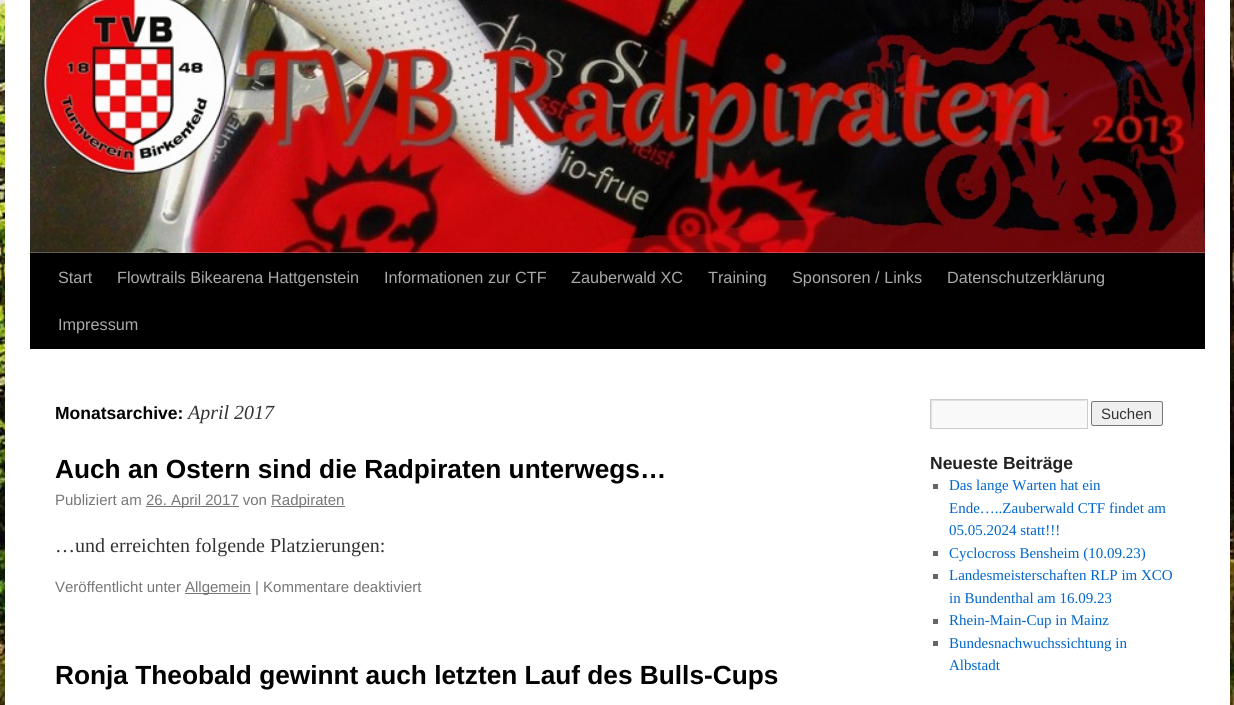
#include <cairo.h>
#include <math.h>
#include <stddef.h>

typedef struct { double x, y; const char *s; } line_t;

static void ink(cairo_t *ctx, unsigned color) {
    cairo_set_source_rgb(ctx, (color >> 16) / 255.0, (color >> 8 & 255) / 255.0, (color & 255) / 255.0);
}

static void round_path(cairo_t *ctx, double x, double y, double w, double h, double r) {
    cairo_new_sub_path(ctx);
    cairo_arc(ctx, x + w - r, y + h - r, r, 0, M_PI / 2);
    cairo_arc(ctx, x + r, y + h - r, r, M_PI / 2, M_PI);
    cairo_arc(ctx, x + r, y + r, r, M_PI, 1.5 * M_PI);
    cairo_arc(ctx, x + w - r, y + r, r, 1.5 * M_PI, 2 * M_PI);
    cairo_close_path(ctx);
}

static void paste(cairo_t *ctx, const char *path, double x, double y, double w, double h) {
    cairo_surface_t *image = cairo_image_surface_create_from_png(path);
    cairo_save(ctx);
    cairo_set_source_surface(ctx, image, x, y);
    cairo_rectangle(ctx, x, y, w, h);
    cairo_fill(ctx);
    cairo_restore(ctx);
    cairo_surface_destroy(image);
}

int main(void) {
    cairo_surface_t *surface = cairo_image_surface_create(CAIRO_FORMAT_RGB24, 1234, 705);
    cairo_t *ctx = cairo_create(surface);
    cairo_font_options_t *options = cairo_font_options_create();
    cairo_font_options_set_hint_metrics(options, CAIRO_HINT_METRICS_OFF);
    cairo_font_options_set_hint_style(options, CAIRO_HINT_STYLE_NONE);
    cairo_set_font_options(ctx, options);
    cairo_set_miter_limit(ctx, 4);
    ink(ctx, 0xFFFFFF);
    cairo_paint(ctx);
    paste(ctx, "media/1.png", 0, 0, 1234, 705);
    ink(ctx, 0xFFFFFF);
    cairo_rectangle(ctx, 5, 0, 1225, 705);
    cairo_fill(ctx);
    ink(ctx, 0x000000);
    cairo_rectangle(ctx, 30, 253, 1175, 96);
    cairo_fill(ctx);
    paste(ctx, "media/2.png", 30, 0, 1175, 253);
    cairo_select_font_face(ctx, "Liberation Sans", CAIRO_FONT_SLANT_NORMAL, CAIRO_FONT_WEIGHT_NORMAL);
    cairo_set_font_size(ctx, 16.25);
    ink(ctx, 0xAAAAAA);
    {
        static const line_t items[] = {
            {58, 283, "Start"},
            {117, 283, "Flowtrails Bikearena Hattgenstein"},
            {384, 283, "Informationen zur CTF"},
            {571, 283, "Zauberwald XC"},
            {708, 283, "Training"},
            {792, 283, "Sponsoren / Links"},
            {947, 283, "Datenschutzerklärung"},
            {58, 330, "Impressum"},
        };
        for (size_t i = 0; i < sizeof items / sizeof *items; i++) {
            cairo_move_to(ctx, items[i].x, items[i].y);
            cairo_show_text(ctx, items[i].s);
        }
    }
    cairo_select_font_face(ctx, "Liberation Sans", CAIRO_FONT_SLANT_NORMAL, CAIRO_FONT_WEIGHT_BOLD);
    cairo_set_font_size(ctx, 17.5);
    ink(ctx, 0x000000);
    cairo_move_to(ctx, 55, 419);
    cairo_show_text(ctx, "Monatsarchive:");
    cairo_select_font_face(ctx, "Liberation Serif", CAIRO_FONT_SLANT_ITALIC, CAIRO_FONT_WEIGHT_NORMAL);
    cairo_set_font_size(ctx, 20);
    ink(ctx, 0x333333);
    cairo_move_to(ctx, 188, 419);
    cairo_show_text(ctx, "April 2017");
    cairo_select_font_face(ctx, "Liberation Sans", CAIRO_FONT_SLANT_NORMAL, CAIRO_FONT_WEIGHT_BOLD);
    cairo_set_font_size(ctx, 26.25);
    ink(ctx, 0x000000);
    cairo_move_to(ctx, 55, 478);
    cairo_show_text(ctx, "Auch an Ostern sind die Radpiraten unterwegs…");
    cairo_select_font_face(ctx, "Liberation Sans", CAIRO_FONT_SLANT_NORMAL, CAIRO_FONT_WEIGHT_NORMAL);
    cairo_set_font_size(ctx, 15);
    ink(ctx, 0x777777);
    cairo_move_to(ctx, 55, 505);
    cairo_show_text(ctx, "Publiziert am");
    cairo_rectangle(ctx, 146, 506, 93, 1);
    cairo_fill(ctx);
    cairo_move_to(ctx, 146, 505);
    cairo_show_text(ctx, "26. April 2017 von");
    cairo_rectangle(ctx, 271, 506, 74, 1);
    cairo_fill(ctx);
    cairo_move_to(ctx, 271, 505);
    cairo_show_text(ctx, "Radpiraten");
    cairo_select_font_face(ctx, "Liberation Serif", CAIRO_FONT_SLANT_NORMAL, CAIRO_FONT_WEIGHT_NORMAL);
    cairo_set_font_size(ctx, 20);
    ink(ctx, 0x333333);
    cairo_move_to(ctx, 55, 552);
    cairo_show_text(ctx, "…und erreichten folgende Platzierungen:");
    cairo_select_font_face(ctx, "Liberation Sans", CAIRO_FONT_SLANT_NORMAL, CAIRO_FONT_WEIGHT_NORMAL);
    cairo_set_font_size(ctx, 15);
    ink(ctx, 0x777777);
    cairo_move_to(ctx, 55, 592);
    cairo_show_text(ctx, "Veröffentlicht unter");
    cairo_rectangle(ctx, 185, 593, 66, 1);
    cairo_fill(ctx);
    cairo_move_to(ctx, 185, 592);
    cairo_show_text(ctx, "Allgemein | Kommentare deaktiviert");
    cairo_select_font_face(ctx, "Liberation Sans", CAIRO_FONT_SLANT_NORMAL, CAIRO_FONT_WEIGHT_BOLD);
    cairo_set_font_size(ctx, 26.25);
    ink(ctx, 0x000000);
    cairo_move_to(ctx, 55, 684);
    cairo_show_text(ctx, "Ronja Theobald gewinnt auch letzten Lauf des Bulls-Cups");
    ink(ctx, 0xF9F9F9);
    cairo_rectangle(ctx, 932, 400, 155, 28);
    cairo_fill(ctx);
    cairo_save(ctx);
    cairo_rectangle(ctx, 931, 400, 155, 28);
    cairo_clip(ctx);
    ink(ctx, 0xE0E0E0);
    cairo_set_fill_rule(ctx, CAIRO_FILL_RULE_EVEN_ODD);
    cairo_new_path(ctx);
    cairo_move_to(ctx, 808, 276);
    cairo_line_to(ctx, 1210, 276);
    cairo_line_to(ctx, 1210, 551);
    cairo_line_to(ctx, 808, 551);
    cairo_close_path(ctx);
    cairo_move_to(ctx, 932, 401);
    cairo_line_to(ctx, 1088, 401);
    cairo_line_to(ctx, 1088, 429);
    cairo_line_to(ctx, 932, 429);
    cairo_close_path(ctx);
    cairo_fill(ctx);
    cairo_restore(ctx);
    cairo_rectangle(ctx, 930.5, 399.5, 157, 29);
    ink(ctx, 0xCCCCCC);
    cairo_set_line_width(ctx, 1);
    cairo_stroke(ctx);
    ink(ctx, 0xEFEFEF);
    round_path(ctx, 1091.5, 401.5, 71, 24, 2);
    cairo_fill_preserve(ctx);
    ink(ctx, 0x767676);
    cairo_stroke(ctx);
    cairo_select_font_face(ctx, "Liberation Sans", CAIRO_FONT_SLANT_NORMAL, CAIRO_FONT_WEIGHT_NORMAL);
    cairo_set_font_size(ctx, 15);
    ink(ctx, 0x333333);
    cairo_move_to(ctx, 1101, 419);
    cairo_show_text(ctx, "Suchen");
    cairo_select_font_face(ctx, "Liberation Sans", CAIRO_FONT_SLANT_NORMAL, CAIRO_FONT_WEIGHT_BOLD);
    cairo_set_font_size(ctx, 17.5);
    ink(ctx, 0x222222);
    cairo_move_to(ctx, 930, 469);
    cairo_show_text(ctx, "Neueste Beiträge");
    ink(ctx, 0x666666);
    cairo_rectangle(ctx, 933, 484, 5, 5);
    cairo_fill(ctx);
    cairo_select_font_face(ctx, "Liberation Serif", CAIRO_FONT_SLANT_NORMAL, CAIRO_FONT_WEIGHT_NORMAL);
    cairo_set_font_size(ctx, 15);
    ink(ctx, 0x0066CC);
    {
        static const line_t items[] = {
            {949, 490, "Das lange Warten hat ein"},
            {949, 513, "Ende…..Zauberwald CTF findet am"},
            {949, 535, "05.05.2024 statt!!!"},
        };
        for (size_t i = 0; i < sizeof items / sizeof *items; i++) {
            cairo_move_to(ctx, items[i].x, items[i].y);
            cairo_show_text(ctx, items[i].s);
        }
    }
    ink(ctx, 0x666666);
    cairo_rectangle(ctx, 933, 551, 5, 5);
    cairo_fill(ctx);
    ink(ctx, 0x0066CC);
    cairo_move_to(ctx, 949, 558);
    cairo_show_text(ctx, "Cyclocross Bensheim (10.09.23)");
    ink(ctx, 0x666666);
    cairo_rectangle(ctx, 933, 574, 5, 5);
    cairo_fill(ctx);
    ink(ctx, 0x0066CC);
    cairo_move_to(ctx, 949, 580);
    cairo_show_text(ctx, "Landesmeisterschaften RLP im XCO");
    cairo_move_to(ctx, 949, 603);
    cairo_show_text(ctx, "in Bundenthal am 16.09.23");
    ink(ctx, 0x666666);
    cairo_rectangle(ctx, 933, 619, 5, 5);
    cairo_fill(ctx);
    ink(ctx, 0x0066CC);
    cairo_move_to(ctx, 949, 625);
    cairo_show_text(ctx, "Rhein-Main-Cup in Mainz");
    ink(ctx, 0x666666);
    cairo_rectangle(ctx, 933, 641, 5, 5);
    cairo_fill(ctx);
    ink(ctx, 0x0066CC);
    cairo_move_to(ctx, 949, 648);
    cairo_show_text(ctx, "Bundesnachwuchssichtung in");
    cairo_move_to(ctx, 949, 670);
    cairo_show_text(ctx, "Albstadt");
    cairo_surface_write_to_png(surface, "image.png");
    cairo_font_options_destroy(options);
    cairo_destroy(ctx);
    cairo_surface_destroy(surface);
    return 0;
}
